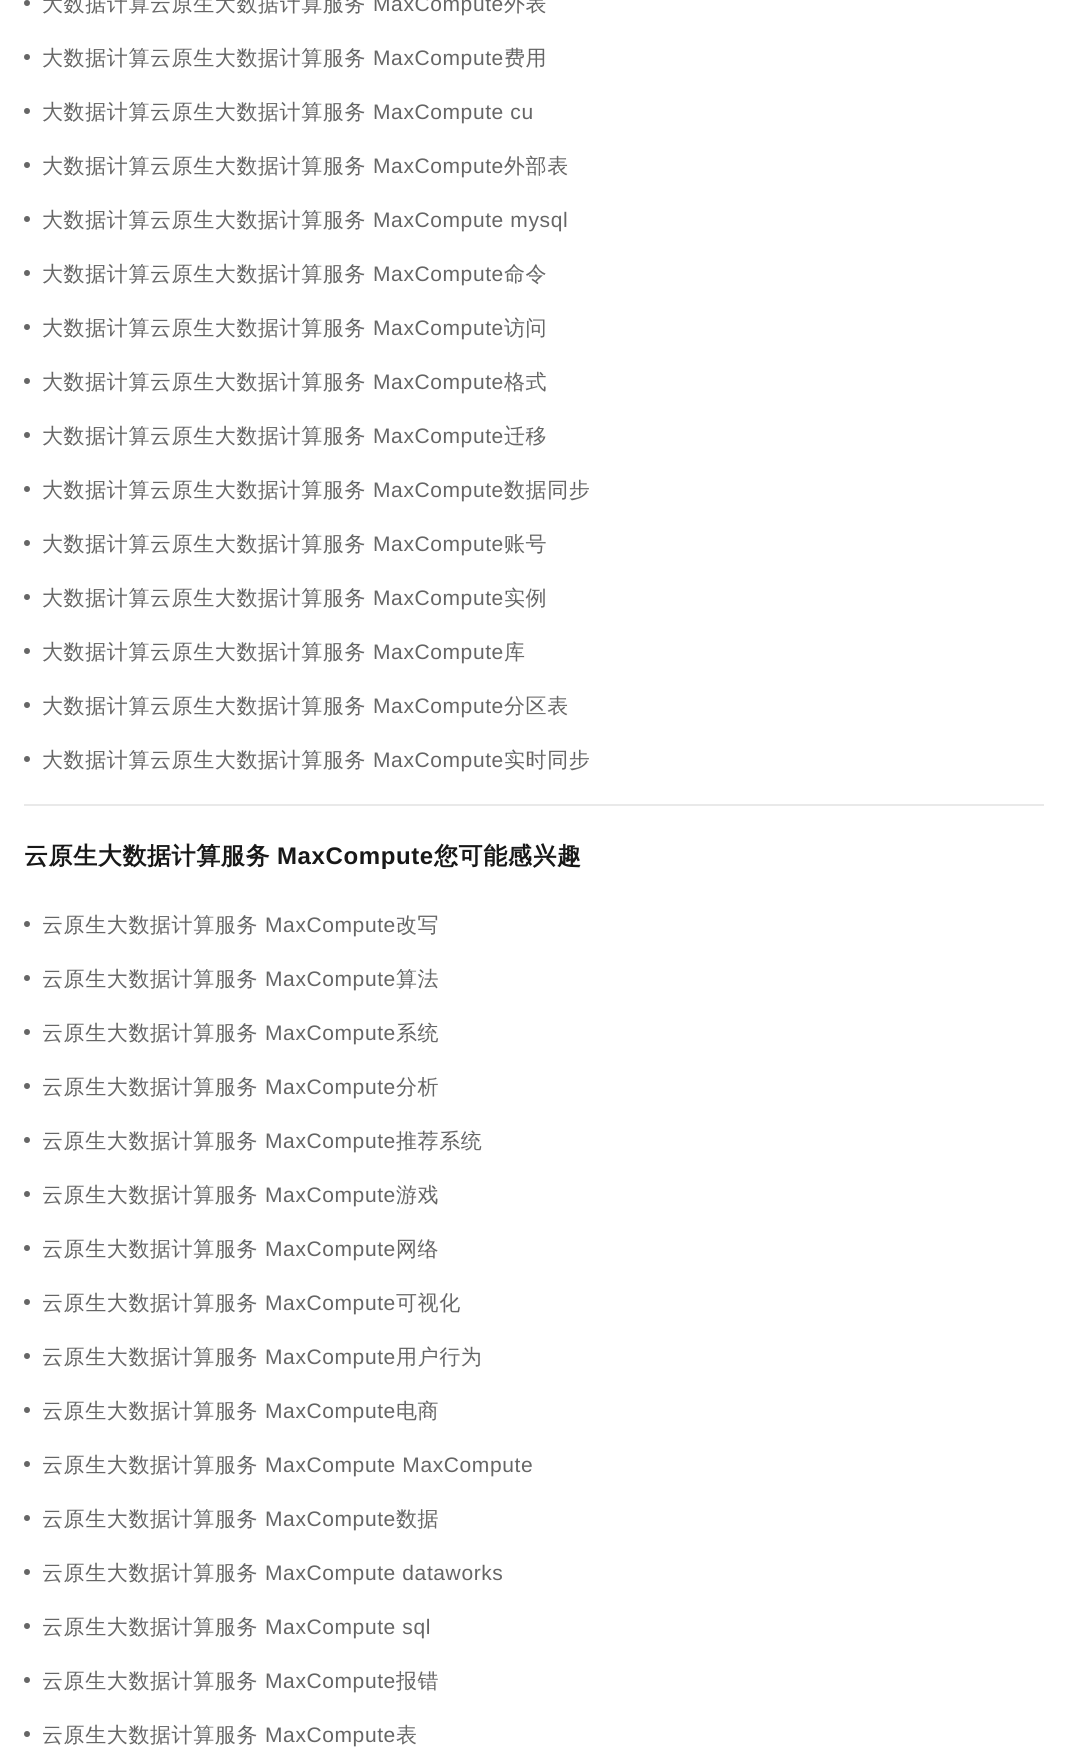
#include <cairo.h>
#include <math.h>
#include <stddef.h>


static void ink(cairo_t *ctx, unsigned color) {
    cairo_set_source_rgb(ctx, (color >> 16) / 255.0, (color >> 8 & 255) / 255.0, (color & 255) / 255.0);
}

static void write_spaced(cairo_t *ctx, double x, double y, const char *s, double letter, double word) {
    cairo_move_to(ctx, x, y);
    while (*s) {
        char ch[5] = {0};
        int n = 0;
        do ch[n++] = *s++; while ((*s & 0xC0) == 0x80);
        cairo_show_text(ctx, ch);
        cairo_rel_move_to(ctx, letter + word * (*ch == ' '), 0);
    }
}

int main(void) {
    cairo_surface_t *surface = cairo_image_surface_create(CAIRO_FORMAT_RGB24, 1067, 1753);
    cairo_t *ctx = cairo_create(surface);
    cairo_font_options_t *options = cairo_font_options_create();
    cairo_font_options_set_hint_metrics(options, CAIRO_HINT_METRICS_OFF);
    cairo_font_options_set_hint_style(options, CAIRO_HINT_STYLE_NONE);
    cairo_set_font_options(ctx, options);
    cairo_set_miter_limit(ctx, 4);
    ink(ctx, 0xFFFFFF);
    cairo_paint(ctx);
    ink(ctx, 0x666666);
    cairo_arc(ctx, 27, 3, 3, 0, 2 * M_PI);
    cairo_fill(ctx);
    cairo_select_font_face(ctx, "WenQuanYi Zen Hei Medium", CAIRO_FONT_SLANT_NORMAL, CAIRO_FONT_WEIGHT_NORMAL);
    cairo_set_font_size(ctx, 21);
    write_spaced(ctx, 42, 11, "大数据计算云原生大数据计算服务", 0.6, 0);
    cairo_select_font_face(ctx, "Liberation Sans", CAIRO_FONT_SLANT_NORMAL, CAIRO_FONT_WEIGHT_NORMAL);
    write_spaced(ctx, 373, 11, "MaxCompute", 0.6, 0);
    cairo_select_font_face(ctx, "WenQuanYi Zen Hei Medium", CAIRO_FONT_SLANT_NORMAL, CAIRO_FONT_WEIGHT_NORMAL);
    write_spaced(ctx, 504, 11, "外表", 0.6, 0);
    cairo_new_path(ctx);
    cairo_arc(ctx, 27, 57, 3, 0, 2 * M_PI);
    cairo_fill(ctx);
    write_spaced(ctx, 42, 65, "大数据计算云原生大数据计算服务", 0.6, 0);
    cairo_select_font_face(ctx, "Liberation Sans", CAIRO_FONT_SLANT_NORMAL, CAIRO_FONT_WEIGHT_NORMAL);
    write_spaced(ctx, 373, 65, "MaxCompute", 0.6, 0);
    cairo_select_font_face(ctx, "WenQuanYi Zen Hei Medium", CAIRO_FONT_SLANT_NORMAL, CAIRO_FONT_WEIGHT_NORMAL);
    write_spaced(ctx, 504, 65, "费用", 0.6, 0);
    cairo_new_path(ctx);
    cairo_arc(ctx, 27, 111, 3, 0, 2 * M_PI);
    cairo_fill(ctx);
    write_spaced(ctx, 42, 119, "大数据计算云原生大数据计算服务", 0.6, 0);
    cairo_select_font_face(ctx, "Liberation Sans", CAIRO_FONT_SLANT_NORMAL, CAIRO_FONT_WEIGHT_NORMAL);
    write_spaced(ctx, 373, 119, "MaxCompute cu", 0.6, 0);
    cairo_new_path(ctx);
    cairo_arc(ctx, 27, 165, 3, 0, 2 * M_PI);
    cairo_fill(ctx);
    cairo_select_font_face(ctx, "WenQuanYi Zen Hei Medium", CAIRO_FONT_SLANT_NORMAL, CAIRO_FONT_WEIGHT_NORMAL);
    write_spaced(ctx, 42, 173, "大数据计算云原生大数据计算服务", 0.6, 0);
    cairo_select_font_face(ctx, "Liberation Sans", CAIRO_FONT_SLANT_NORMAL, CAIRO_FONT_WEIGHT_NORMAL);
    write_spaced(ctx, 373, 173, "MaxCompute", 0.6, 0);
    cairo_select_font_face(ctx, "WenQuanYi Zen Hei Medium", CAIRO_FONT_SLANT_NORMAL, CAIRO_FONT_WEIGHT_NORMAL);
    write_spaced(ctx, 504, 173, "外部表", 0.6, 0);
    cairo_new_path(ctx);
    cairo_arc(ctx, 27, 219, 3, 0, 2 * M_PI);
    cairo_fill(ctx);
    write_spaced(ctx, 42, 227, "大数据计算云原生大数据计算服务", 0.6, 0);
    cairo_select_font_face(ctx, "Liberation Sans", CAIRO_FONT_SLANT_NORMAL, CAIRO_FONT_WEIGHT_NORMAL);
    write_spaced(ctx, 373, 227, "MaxCompute mysql", 0.6, 0);
    cairo_new_path(ctx);
    cairo_arc(ctx, 27, 273, 3, 0, 2 * M_PI);
    cairo_fill(ctx);
    cairo_select_font_face(ctx, "WenQuanYi Zen Hei Medium", CAIRO_FONT_SLANT_NORMAL, CAIRO_FONT_WEIGHT_NORMAL);
    write_spaced(ctx, 42, 281, "大数据计算云原生大数据计算服务", 0.6, 0);
    cairo_select_font_face(ctx, "Liberation Sans", CAIRO_FONT_SLANT_NORMAL, CAIRO_FONT_WEIGHT_NORMAL);
    write_spaced(ctx, 373, 281, "MaxCompute", 0.6, 0);
    cairo_select_font_face(ctx, "WenQuanYi Zen Hei Medium", CAIRO_FONT_SLANT_NORMAL, CAIRO_FONT_WEIGHT_NORMAL);
    write_spaced(ctx, 504, 281, "命令", 0.6, 0);
    cairo_new_path(ctx);
    cairo_arc(ctx, 27, 327, 3, 0, 2 * M_PI);
    cairo_fill(ctx);
    write_spaced(ctx, 42, 335, "大数据计算云原生大数据计算服务", 0.6, 0);
    cairo_select_font_face(ctx, "Liberation Sans", CAIRO_FONT_SLANT_NORMAL, CAIRO_FONT_WEIGHT_NORMAL);
    write_spaced(ctx, 373, 335, "MaxCompute", 0.6, 0);
    cairo_select_font_face(ctx, "WenQuanYi Zen Hei Medium", CAIRO_FONT_SLANT_NORMAL, CAIRO_FONT_WEIGHT_NORMAL);
    write_spaced(ctx, 504, 335, "访问", 0.6, 0);
    cairo_new_path(ctx);
    cairo_arc(ctx, 27, 381, 3, 0, 2 * M_PI);
    cairo_fill(ctx);
    write_spaced(ctx, 42, 389, "大数据计算云原生大数据计算服务", 0.6, 0);
    cairo_select_font_face(ctx, "Liberation Sans", CAIRO_FONT_SLANT_NORMAL, CAIRO_FONT_WEIGHT_NORMAL);
    write_spaced(ctx, 373, 389, "MaxCompute", 0.6, 0);
    cairo_select_font_face(ctx, "WenQuanYi Zen Hei Medium", CAIRO_FONT_SLANT_NORMAL, CAIRO_FONT_WEIGHT_NORMAL);
    write_spaced(ctx, 504, 389, "格式", 0.6, 0);
    cairo_new_path(ctx);
    cairo_arc(ctx, 27, 435, 3, 0, 2 * M_PI);
    cairo_fill(ctx);
    write_spaced(ctx, 42, 443, "大数据计算云原生大数据计算服务", 0.6, 0);
    cairo_select_font_face(ctx, "Liberation Sans", CAIRO_FONT_SLANT_NORMAL, CAIRO_FONT_WEIGHT_NORMAL);
    write_spaced(ctx, 373, 443, "MaxCompute", 0.6, 0);
    cairo_select_font_face(ctx, "WenQuanYi Zen Hei Medium", CAIRO_FONT_SLANT_NORMAL, CAIRO_FONT_WEIGHT_NORMAL);
    write_spaced(ctx, 504, 443, "迁移", 0.6, 0);
    cairo_new_path(ctx);
    cairo_arc(ctx, 27, 489, 3, 0, 2 * M_PI);
    cairo_fill(ctx);
    write_spaced(ctx, 42, 497, "大数据计算云原生大数据计算服务", 0.6, 0);
    cairo_select_font_face(ctx, "Liberation Sans", CAIRO_FONT_SLANT_NORMAL, CAIRO_FONT_WEIGHT_NORMAL);
    write_spaced(ctx, 373, 497, "MaxCompute", 0.6, 0);
    cairo_select_font_face(ctx, "WenQuanYi Zen Hei Medium", CAIRO_FONT_SLANT_NORMAL, CAIRO_FONT_WEIGHT_NORMAL);
    write_spaced(ctx, 504, 497, "数据同步", 0.6, 0);
    cairo_new_path(ctx);
    cairo_arc(ctx, 27, 543, 3, 0, 2 * M_PI);
    cairo_fill(ctx);
    write_spaced(ctx, 42, 551, "大数据计算云原生大数据计算服务", 0.6, 0);
    cairo_select_font_face(ctx, "Liberation Sans", CAIRO_FONT_SLANT_NORMAL, CAIRO_FONT_WEIGHT_NORMAL);
    write_spaced(ctx, 373, 551, "MaxCompute", 0.6, 0);
    cairo_select_font_face(ctx, "WenQuanYi Zen Hei Medium", CAIRO_FONT_SLANT_NORMAL, CAIRO_FONT_WEIGHT_NORMAL);
    write_spaced(ctx, 504, 551, "账号", 0.6, 0);
    cairo_new_path(ctx);
    cairo_arc(ctx, 27, 597, 3, 0, 2 * M_PI);
    cairo_fill(ctx);
    write_spaced(ctx, 42, 605, "大数据计算云原生大数据计算服务", 0.6, 0);
    cairo_select_font_face(ctx, "Liberation Sans", CAIRO_FONT_SLANT_NORMAL, CAIRO_FONT_WEIGHT_NORMAL);
    write_spaced(ctx, 373, 605, "MaxCompute", 0.6, 0);
    cairo_select_font_face(ctx, "WenQuanYi Zen Hei Medium", CAIRO_FONT_SLANT_NORMAL, CAIRO_FONT_WEIGHT_NORMAL);
    write_spaced(ctx, 504, 605, "实例", 0.6, 0);
    cairo_new_path(ctx);
    cairo_arc(ctx, 27, 651, 3, 0, 2 * M_PI);
    cairo_fill(ctx);
    write_spaced(ctx, 42, 659, "大数据计算云原生大数据计算服务", 0.6, 0);
    cairo_select_font_face(ctx, "Liberation Sans", CAIRO_FONT_SLANT_NORMAL, CAIRO_FONT_WEIGHT_NORMAL);
    write_spaced(ctx, 373, 659, "MaxCompute", 0.6, 0);
    cairo_select_font_face(ctx, "WenQuanYi Zen Hei Medium", CAIRO_FONT_SLANT_NORMAL, CAIRO_FONT_WEIGHT_NORMAL);
    write_spaced(ctx, 504, 659, "库", 0.6, 0);
    cairo_new_path(ctx);
    cairo_arc(ctx, 27, 705, 3, 0, 2 * M_PI);
    cairo_fill(ctx);
    write_spaced(ctx, 42, 713, "大数据计算云原生大数据计算服务", 0.6, 0);
    cairo_select_font_face(ctx, "Liberation Sans", CAIRO_FONT_SLANT_NORMAL, CAIRO_FONT_WEIGHT_NORMAL);
    write_spaced(ctx, 373, 713, "MaxCompute", 0.6, 0);
    cairo_select_font_face(ctx, "WenQuanYi Zen Hei Medium", CAIRO_FONT_SLANT_NORMAL, CAIRO_FONT_WEIGHT_NORMAL);
    write_spaced(ctx, 504, 713, "分区表", 0.6, 0);
    cairo_new_path(ctx);
    cairo_arc(ctx, 27, 759, 3, 0, 2 * M_PI);
    cairo_fill(ctx);
    write_spaced(ctx, 42, 767, "大数据计算云原生大数据计算服务", 0.6, 0);
    cairo_select_font_face(ctx, "Liberation Sans", CAIRO_FONT_SLANT_NORMAL, CAIRO_FONT_WEIGHT_NORMAL);
    write_spaced(ctx, 373, 767, "MaxCompute", 0.6, 0);
    cairo_select_font_face(ctx, "WenQuanYi Zen Hei Medium", CAIRO_FONT_SLANT_NORMAL, CAIRO_FONT_WEIGHT_NORMAL);
    write_spaced(ctx, 504, 767, "实时同步", 0.6, 0);
    ink(ctx, 0xE9E9E9);
    cairo_rectangle(ctx, 24, 804, 1020, 2);
    cairo_fill(ctx);
    cairo_select_font_face(ctx, "WenQuanYi Zen Hei", CAIRO_FONT_SLANT_NORMAL, CAIRO_FONT_WEIGHT_BOLD);
    cairo_set_font_size(ctx, 24);
    ink(ctx, 0x181818);
    write_spaced(ctx, 24, 864, "云原生大数据计算服务", 0.6, 0);
    cairo_select_font_face(ctx, "Liberation Sans", CAIRO_FONT_SLANT_NORMAL, CAIRO_FONT_WEIGHT_BOLD);
    write_spaced(ctx, 277, 864, "MaxCompute", 0.6, 0);
    cairo_select_font_face(ctx, "WenQuanYi Zen Hei", CAIRO_FONT_SLANT_NORMAL, CAIRO_FONT_WEIGHT_BOLD);
    write_spaced(ctx, 434, 864, "您可能感兴趣", 0.6, 0);
    ink(ctx, 0x666666);
    cairo_new_path(ctx);
    cairo_arc(ctx, 27, 924, 3, 0, 2 * M_PI);
    cairo_fill(ctx);
    cairo_select_font_face(ctx, "WenQuanYi Zen Hei Medium", CAIRO_FONT_SLANT_NORMAL, CAIRO_FONT_WEIGHT_NORMAL);
    cairo_set_font_size(ctx, 21);
    write_spaced(ctx, 42, 932, "云原生大数据计算服务", 0.6, 0);
    cairo_select_font_face(ctx, "Liberation Sans", CAIRO_FONT_SLANT_NORMAL, CAIRO_FONT_WEIGHT_NORMAL);
    write_spaced(ctx, 265, 932, "MaxCompute", 0.6, 0);
    cairo_select_font_face(ctx, "WenQuanYi Zen Hei Medium", CAIRO_FONT_SLANT_NORMAL, CAIRO_FONT_WEIGHT_NORMAL);
    write_spaced(ctx, 396, 932, "改写", 0.6, 0);
    cairo_new_path(ctx);
    cairo_arc(ctx, 27, 978, 3, 0, 2 * M_PI);
    cairo_fill(ctx);
    write_spaced(ctx, 42, 986, "云原生大数据计算服务", 0.6, 0);
    cairo_select_font_face(ctx, "Liberation Sans", CAIRO_FONT_SLANT_NORMAL, CAIRO_FONT_WEIGHT_NORMAL);
    write_spaced(ctx, 265, 986, "MaxCompute", 0.6, 0);
    cairo_select_font_face(ctx, "WenQuanYi Zen Hei Medium", CAIRO_FONT_SLANT_NORMAL, CAIRO_FONT_WEIGHT_NORMAL);
    write_spaced(ctx, 396, 986, "算法", 0.6, 0);
    cairo_new_path(ctx);
    cairo_arc(ctx, 27, 1032, 3, 0, 2 * M_PI);
    cairo_fill(ctx);
    write_spaced(ctx, 42, 1040, "云原生大数据计算服务", 0.6, 0);
    cairo_select_font_face(ctx, "Liberation Sans", CAIRO_FONT_SLANT_NORMAL, CAIRO_FONT_WEIGHT_NORMAL);
    write_spaced(ctx, 265, 1040, "MaxCompute", 0.6, 0);
    cairo_select_font_face(ctx, "WenQuanYi Zen Hei Medium", CAIRO_FONT_SLANT_NORMAL, CAIRO_FONT_WEIGHT_NORMAL);
    write_spaced(ctx, 396, 1040, "系统", 0.6, 0);
    cairo_new_path(ctx);
    cairo_arc(ctx, 27, 1086, 3, 0, 2 * M_PI);
    cairo_fill(ctx);
    write_spaced(ctx, 42, 1094, "云原生大数据计算服务", 0.6, 0);
    cairo_select_font_face(ctx, "Liberation Sans", CAIRO_FONT_SLANT_NORMAL, CAIRO_FONT_WEIGHT_NORMAL);
    write_spaced(ctx, 265, 1094, "MaxCompute", 0.6, 0);
    cairo_select_font_face(ctx, "WenQuanYi Zen Hei Medium", CAIRO_FONT_SLANT_NORMAL, CAIRO_FONT_WEIGHT_NORMAL);
    write_spaced(ctx, 396, 1094, "分析", 0.6, 0);
    cairo_new_path(ctx);
    cairo_arc(ctx, 27, 1140, 3, 0, 2 * M_PI);
    cairo_fill(ctx);
    write_spaced(ctx, 42, 1148, "云原生大数据计算服务", 0.6, 0);
    cairo_select_font_face(ctx, "Liberation Sans", CAIRO_FONT_SLANT_NORMAL, CAIRO_FONT_WEIGHT_NORMAL);
    write_spaced(ctx, 265, 1148, "MaxCompute", 0.6, 0);
    cairo_select_font_face(ctx, "WenQuanYi Zen Hei Medium", CAIRO_FONT_SLANT_NORMAL, CAIRO_FONT_WEIGHT_NORMAL);
    write_spaced(ctx, 396, 1148, "推荐系统", 0.6, 0);
    cairo_new_path(ctx);
    cairo_arc(ctx, 27, 1194, 3, 0, 2 * M_PI);
    cairo_fill(ctx);
    write_spaced(ctx, 42, 1202, "云原生大数据计算服务", 0.6, 0);
    cairo_select_font_face(ctx, "Liberation Sans", CAIRO_FONT_SLANT_NORMAL, CAIRO_FONT_WEIGHT_NORMAL);
    write_spaced(ctx, 265, 1202, "MaxCompute", 0.6, 0);
    cairo_select_font_face(ctx, "WenQuanYi Zen Hei Medium", CAIRO_FONT_SLANT_NORMAL, CAIRO_FONT_WEIGHT_NORMAL);
    write_spaced(ctx, 396, 1202, "游戏", 0.6, 0);
    cairo_new_path(ctx);
    cairo_arc(ctx, 27, 1248, 3, 0, 2 * M_PI);
    cairo_fill(ctx);
    write_spaced(ctx, 42, 1256, "云原生大数据计算服务", 0.6, 0);
    cairo_select_font_face(ctx, "Liberation Sans", CAIRO_FONT_SLANT_NORMAL, CAIRO_FONT_WEIGHT_NORMAL);
    write_spaced(ctx, 265, 1256, "MaxCompute", 0.6, 0);
    cairo_select_font_face(ctx, "WenQuanYi Zen Hei Medium", CAIRO_FONT_SLANT_NORMAL, CAIRO_FONT_WEIGHT_NORMAL);
    write_spaced(ctx, 396, 1256, "网络", 0.6, 0);
    cairo_new_path(ctx);
    cairo_arc(ctx, 27, 1302, 3, 0, 2 * M_PI);
    cairo_fill(ctx);
    write_spaced(ctx, 42, 1310, "云原生大数据计算服务", 0.6, 0);
    cairo_select_font_face(ctx, "Liberation Sans", CAIRO_FONT_SLANT_NORMAL, CAIRO_FONT_WEIGHT_NORMAL);
    write_spaced(ctx, 265, 1310, "MaxCompute", 0.6, 0);
    cairo_select_font_face(ctx, "WenQuanYi Zen Hei Medium", CAIRO_FONT_SLANT_NORMAL, CAIRO_FONT_WEIGHT_NORMAL);
    write_spaced(ctx, 396, 1310, "可视化", 0.6, 0);
    cairo_new_path(ctx);
    cairo_arc(ctx, 27, 1356, 3, 0, 2 * M_PI);
    cairo_fill(ctx);
    write_spaced(ctx, 42, 1364, "云原生大数据计算服务", 0.6, 0);
    cairo_select_font_face(ctx, "Liberation Sans", CAIRO_FONT_SLANT_NORMAL, CAIRO_FONT_WEIGHT_NORMAL);
    write_spaced(ctx, 265, 1364, "MaxCompute", 0.6, 0);
    cairo_select_font_face(ctx, "WenQuanYi Zen Hei Medium", CAIRO_FONT_SLANT_NORMAL, CAIRO_FONT_WEIGHT_NORMAL);
    write_spaced(ctx, 396, 1364, "用户行为", 0.6, 0);
    cairo_new_path(ctx);
    cairo_arc(ctx, 27, 1410, 3, 0, 2 * M_PI);
    cairo_fill(ctx);
    write_spaced(ctx, 42, 1418, "云原生大数据计算服务", 0.6, 0);
    cairo_select_font_face(ctx, "Liberation Sans", CAIRO_FONT_SLANT_NORMAL, CAIRO_FONT_WEIGHT_NORMAL);
    write_spaced(ctx, 265, 1418, "MaxCompute", 0.6, 0);
    cairo_select_font_face(ctx, "WenQuanYi Zen Hei Medium", CAIRO_FONT_SLANT_NORMAL, CAIRO_FONT_WEIGHT_NORMAL);
    write_spaced(ctx, 396, 1418, "电商", 0.6, 0);
    cairo_new_path(ctx);
    cairo_arc(ctx, 27, 1464, 3, 0, 2 * M_PI);
    cairo_fill(ctx);
    write_spaced(ctx, 42, 1472, "云原生大数据计算服务", 0.6, 0);
    cairo_select_font_face(ctx, "Liberation Sans", CAIRO_FONT_SLANT_NORMAL, CAIRO_FONT_WEIGHT_NORMAL);
    write_spaced(ctx, 265, 1472, "MaxCompute MaxCompute", 0.6, 0);
    cairo_new_path(ctx);
    cairo_arc(ctx, 27, 1518, 3, 0, 2 * M_PI);
    cairo_fill(ctx);
    cairo_select_font_face(ctx, "WenQuanYi Zen Hei Medium", CAIRO_FONT_SLANT_NORMAL, CAIRO_FONT_WEIGHT_NORMAL);
    write_spaced(ctx, 42, 1526, "云原生大数据计算服务", 0.6, 0);
    cairo_select_font_face(ctx, "Liberation Sans", CAIRO_FONT_SLANT_NORMAL, CAIRO_FONT_WEIGHT_NORMAL);
    write_spaced(ctx, 265, 1526, "MaxCompute", 0.6, 0);
    cairo_select_font_face(ctx, "WenQuanYi Zen Hei Medium", CAIRO_FONT_SLANT_NORMAL, CAIRO_FONT_WEIGHT_NORMAL);
    write_spaced(ctx, 396, 1526, "数据", 0.6, 0);
    cairo_new_path(ctx);
    cairo_arc(ctx, 27, 1572, 3, 0, 2 * M_PI);
    cairo_fill(ctx);
    write_spaced(ctx, 42, 1580, "云原生大数据计算服务", 0.6, 0);
    cairo_select_font_face(ctx, "Liberation Sans", CAIRO_FONT_SLANT_NORMAL, CAIRO_FONT_WEIGHT_NORMAL);
    write_spaced(ctx, 265, 1580, "MaxCompute dataworks", 0.6, 0);
    cairo_new_path(ctx);
    cairo_arc(ctx, 27, 1626, 3, 0, 2 * M_PI);
    cairo_fill(ctx);
    cairo_select_font_face(ctx, "WenQuanYi Zen Hei Medium", CAIRO_FONT_SLANT_NORMAL, CAIRO_FONT_WEIGHT_NORMAL);
    write_spaced(ctx, 42, 1634, "云原生大数据计算服务", 0.6, 0);
    cairo_select_font_face(ctx, "Liberation Sans", CAIRO_FONT_SLANT_NORMAL, CAIRO_FONT_WEIGHT_NORMAL);
    write_spaced(ctx, 265, 1634, "MaxCompute sql", 0.6, 0);
    cairo_new_path(ctx);
    cairo_arc(ctx, 27, 1680, 3, 0, 2 * M_PI);
    cairo_fill(ctx);
    cairo_select_font_face(ctx, "WenQuanYi Zen Hei Medium", CAIRO_FONT_SLANT_NORMAL, CAIRO_FONT_WEIGHT_NORMAL);
    write_spaced(ctx, 42, 1688, "云原生大数据计算服务", 0.6, 0);
    cairo_select_font_face(ctx, "Liberation Sans", CAIRO_FONT_SLANT_NORMAL, CAIRO_FONT_WEIGHT_NORMAL);
    write_spaced(ctx, 265, 1688, "MaxCompute", 0.6, 0);
    cairo_select_font_face(ctx, "WenQuanYi Zen Hei Medium", CAIRO_FONT_SLANT_NORMAL, CAIRO_FONT_WEIGHT_NORMAL);
    write_spaced(ctx, 396, 1688, "报错", 0.6, 0);
    cairo_new_path(ctx);
    cairo_arc(ctx, 27, 1734, 3, 0, 2 * M_PI);
    cairo_fill(ctx);
    write_spaced(ctx, 42, 1742, "云原生大数据计算服务", 0.6, 0);
    cairo_select_font_face(ctx, "Liberation Sans", CAIRO_FONT_SLANT_NORMAL, CAIRO_FONT_WEIGHT_NORMAL);
    write_spaced(ctx, 265, 1742, "MaxCompute", 0.6, 0);
    cairo_select_font_face(ctx, "WenQuanYi Zen Hei Medium", CAIRO_FONT_SLANT_NORMAL, CAIRO_FONT_WEIGHT_NORMAL);
    write_spaced(ctx, 396, 1742, "表", 0.6, 0);
    cairo_surface_write_to_png(surface, "image.png");
    cairo_font_options_destroy(options);
    cairo_destroy(ctx);
    cairo_surface_destroy(surface);
    return 0;
}
